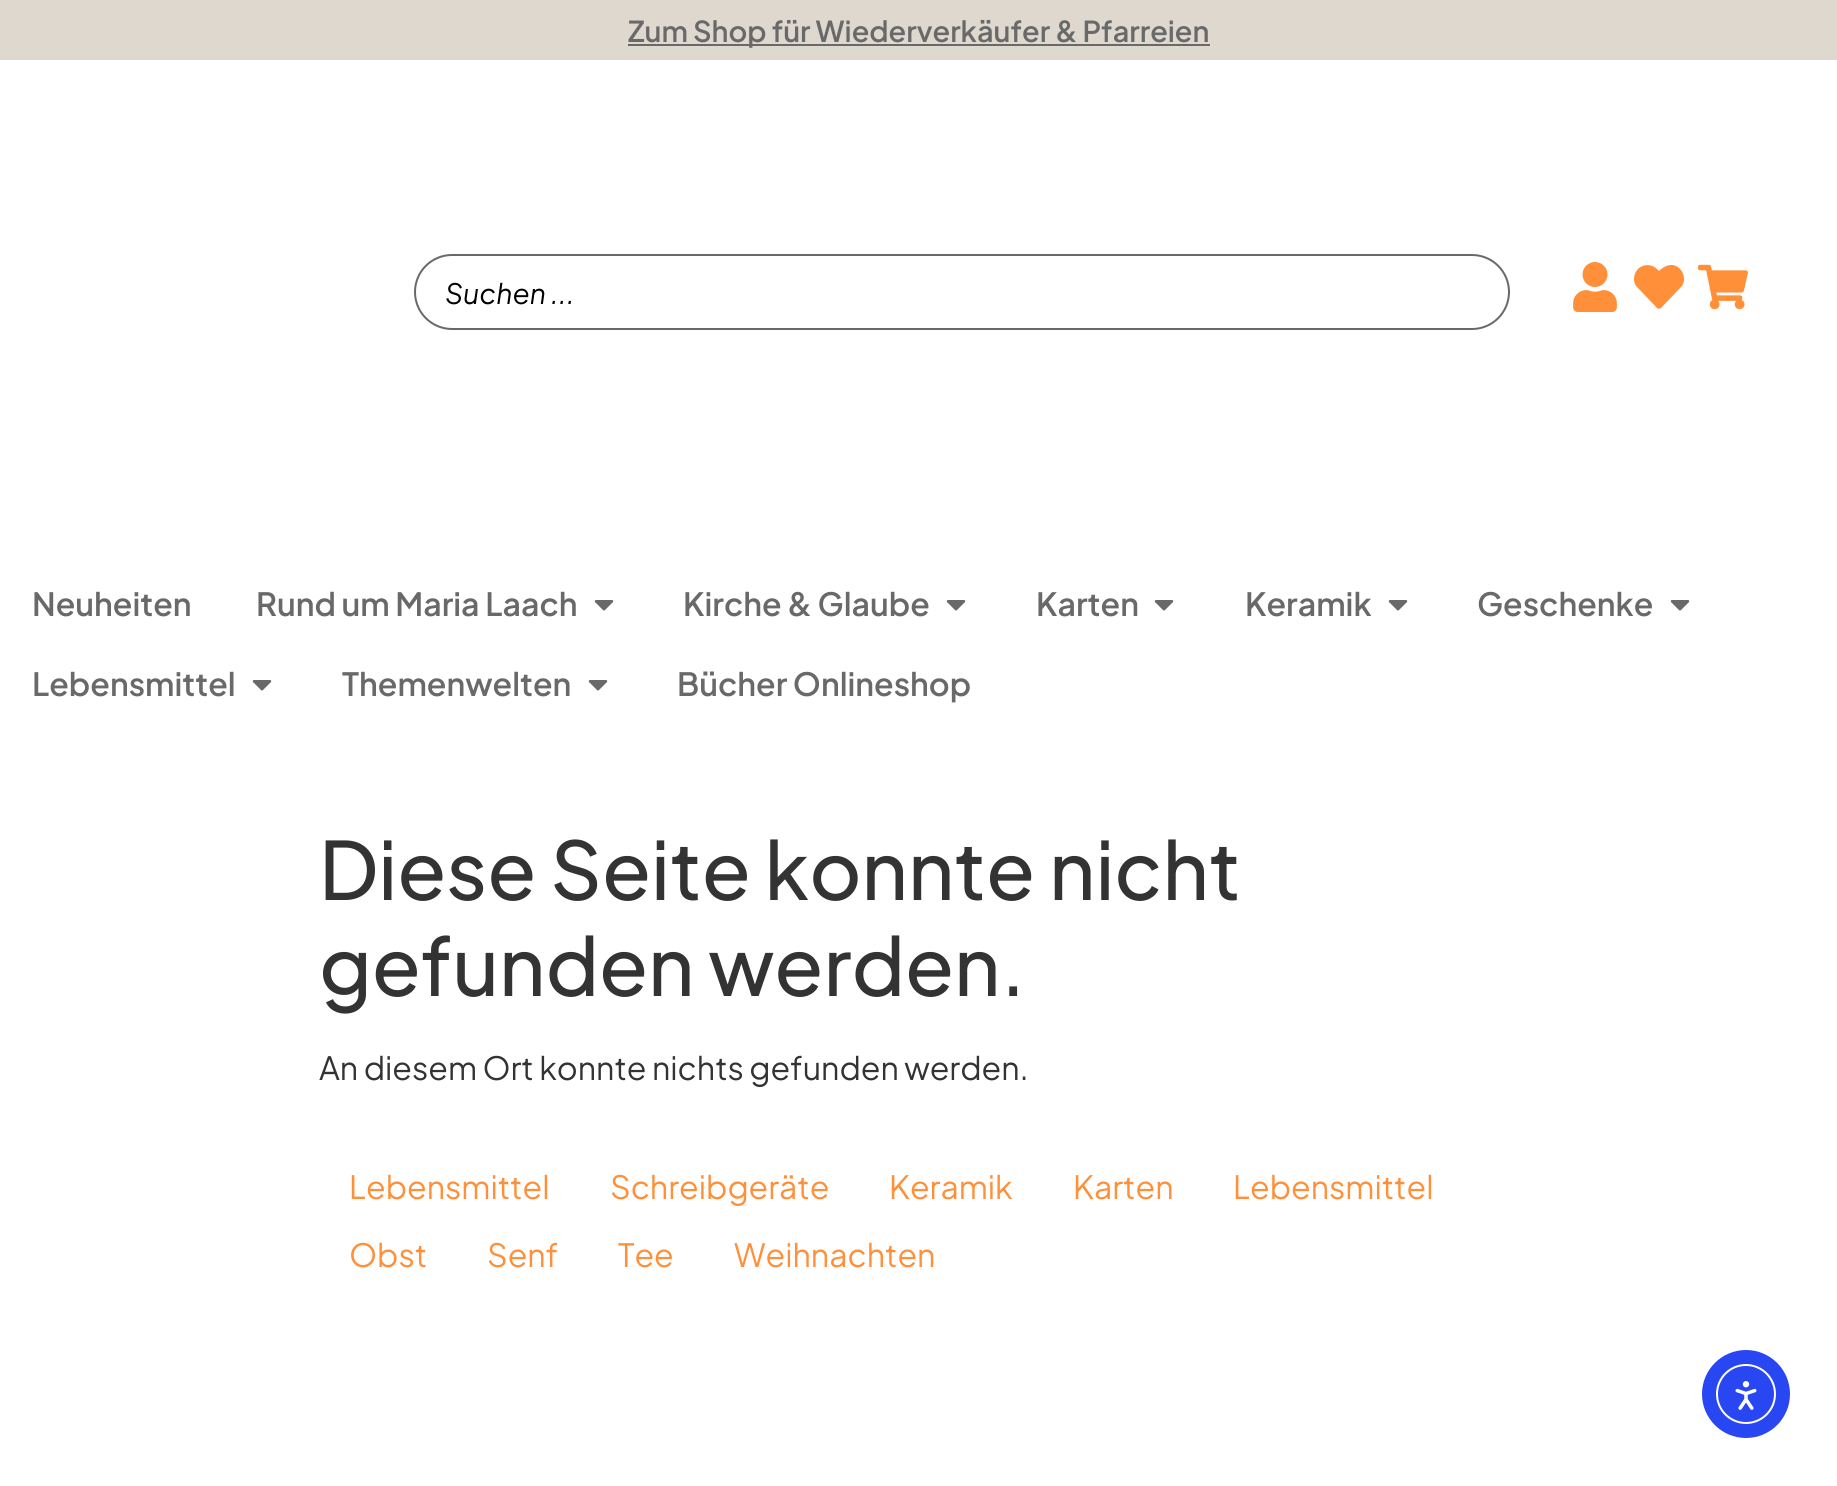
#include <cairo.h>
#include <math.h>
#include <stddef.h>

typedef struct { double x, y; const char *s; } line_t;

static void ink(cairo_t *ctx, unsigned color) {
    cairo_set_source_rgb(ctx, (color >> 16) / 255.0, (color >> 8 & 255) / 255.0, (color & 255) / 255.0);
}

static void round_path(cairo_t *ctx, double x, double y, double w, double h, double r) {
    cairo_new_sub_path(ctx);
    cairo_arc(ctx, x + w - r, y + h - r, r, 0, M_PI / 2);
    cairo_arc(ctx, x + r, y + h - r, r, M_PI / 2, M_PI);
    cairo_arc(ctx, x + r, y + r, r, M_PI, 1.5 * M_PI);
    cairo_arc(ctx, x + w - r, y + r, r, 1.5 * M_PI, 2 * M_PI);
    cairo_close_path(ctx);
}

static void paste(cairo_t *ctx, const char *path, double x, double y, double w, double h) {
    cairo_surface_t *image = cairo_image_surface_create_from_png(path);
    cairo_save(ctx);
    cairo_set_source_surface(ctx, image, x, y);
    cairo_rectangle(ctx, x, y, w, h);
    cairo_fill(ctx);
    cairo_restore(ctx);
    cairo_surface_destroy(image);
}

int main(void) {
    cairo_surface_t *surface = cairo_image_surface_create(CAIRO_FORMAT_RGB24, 1837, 1486);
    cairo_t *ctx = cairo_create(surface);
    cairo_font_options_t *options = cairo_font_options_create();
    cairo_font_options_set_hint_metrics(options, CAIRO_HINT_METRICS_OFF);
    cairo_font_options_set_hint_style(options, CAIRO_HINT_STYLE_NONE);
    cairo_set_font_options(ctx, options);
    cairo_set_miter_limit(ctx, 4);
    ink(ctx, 0xFFFFFF);
    cairo_paint(ctx);
    ink(ctx, 0xDED8CF);
    cairo_rectangle(ctx, 0, 0, 1837, 60);
    cairo_fill(ctx);
    ink(ctx, 0x696969);
    cairo_rectangle(ctx, 628, 44, 582, 2);
    cairo_fill(ctx);
    cairo_select_font_face(ctx, "Plus Jakarta Sans SemiBold", CAIRO_FONT_SLANT_NORMAL, CAIRO_FONT_WEIGHT_NORMAL);
    cairo_set_font_size(ctx, 28.8);
    cairo_move_to(ctx, 628, 42);
    cairo_show_text(ctx, "Zum Shop für Wiederverkäufer & Pfarreien");
    round_path(ctx, 415, 255, 1094, 74, 37);
    cairo_stroke(ctx);
    cairo_select_font_face(ctx, "Plus Jakarta Sans", CAIRO_FONT_SLANT_ITALIC, CAIRO_FONT_WEIGHT_NORMAL);
    cairo_set_font_size(ctx, 28);
    ink(ctx, 0x000000);
    cairo_move_to(ctx, 445, 304);
    cairo_show_text(ctx, "Suchen ...");
    paste(ctx, "media/1.png", 1573, 262, 44, 50);
    ink(ctx, 0xFF8F38);
    cairo_new_path(ctx);
    cairo_move_to(ctx, 1679, 268);
    cairo_curve_to(ctx, 1672, 262, 1664, 266, 1659, 271);
    cairo_line_to(ctx, 1657, 269);
    cairo_curve_to(ctx, 1652, 264, 1644, 264, 1639, 268);
    cairo_curve_to(ctx, 1633, 273, 1632, 283, 1638, 288);
    cairo_line_to(ctx, 1657, 308);
    cairo_curve_to(ctx, 1658, 309, 1660, 309, 1661, 308);
    cairo_line_to(ctx, 1680, 288);
    cairo_curve_to(ctx, 1686, 283, 1685, 273, 1679, 268);
    cairo_close_path(ctx);
    cairo_fill(ctx);
    paste(ctx, "media/2.png", 1698, 264, 50, 46);
    cairo_select_font_face(ctx, "Plus Jakarta Sans SemiBold", CAIRO_FONT_SLANT_NORMAL, CAIRO_FONT_WEIGHT_NORMAL);
    cairo_set_font_size(ctx, 32);
    ink(ctx, 0x696969);
    cairo_move_to(ctx, 32, 616);
    cairo_show_text(ctx, "Neuheiten");
    cairo_move_to(ctx, 256, 616);
    cairo_show_text(ctx, "Rund um Maria Laach");
    paste(ctx, "media/3.png", 594, 600, 20, 11);
    cairo_move_to(ctx, 683, 616);
    cairo_show_text(ctx, "Kirche & Glaube");
    paste(ctx, "media/3.png", 946, 600, 20, 11);
    cairo_move_to(ctx, 1036, 616);
    cairo_show_text(ctx, "Karten");
    paste(ctx, "media/3.png", 1154, 600, 20, 11);
    cairo_move_to(ctx, 1245, 616);
    cairo_show_text(ctx, "Keramik");
    paste(ctx, "media/3.png", 1388, 600, 20, 11);
    cairo_move_to(ctx, 1477, 616);
    cairo_show_text(ctx, "Geschenke");
    paste(ctx, "media/3.png", 1670, 600, 20, 11);
    cairo_move_to(ctx, 32, 696);
    cairo_show_text(ctx, "Lebensmittel");
    paste(ctx, "media/3.png", 252, 680, 20, 11);
    cairo_move_to(ctx, 342, 696);
    cairo_show_text(ctx, "Themenwelten");
    paste(ctx, "media/3.png", 588, 680, 20, 11);
    cairo_move_to(ctx, 677, 696);
    cairo_show_text(ctx, "Bücher Onlineshop");
    cairo_select_font_face(ctx, "Plus Jakarta Sans Medium", CAIRO_FONT_SLANT_NORMAL, CAIRO_FONT_WEIGHT_NORMAL);
    cairo_set_font_size(ctx, 80);
    ink(ctx, 0x333333);
    cairo_move_to(ctx, 319, 900);
    cairo_show_text(ctx, "Diese Seite konnte nicht");
    cairo_move_to(ctx, 319, 996);
    cairo_show_text(ctx, "gefunden werden.");
    cairo_select_font_face(ctx, "Plus Jakarta Sans", CAIRO_FONT_SLANT_NORMAL, CAIRO_FONT_WEIGHT_NORMAL);
    cairo_set_font_size(ctx, 32);
    cairo_move_to(ctx, 319, 1080);
    cairo_show_text(ctx, "An diesem Ort konnte nichts gefunden werden.");
    ink(ctx, 0xFF8F38);
    {
        static const line_t items[] = {
            {349, 1199, "Lebensmittel"},
            {610, 1199, "Schreibgeräte"},
            {889, 1199, "Keramik"},
            {1073, 1199, "Karten"},
            {1233, 1199, "Lebensmittel"},
            {349, 1267, "Obst"},
            {487, 1267, "Senf"},
            {618, 1267, "Tee"},
            {734, 1267, "Weihnachten"},
        };
        for (size_t i = 0; i < sizeof items / sizeof *items; i++) {
            cairo_move_to(ctx, items[i].x, items[i].y);
            cairo_show_text(ctx, items[i].s);
        }
    }
    ink(ctx, 0x2847F3);
    cairo_new_path(ctx);
    cairo_arc(ctx, 1746, 1394, 44, 0, 2 * M_PI);
    cairo_fill(ctx);
    cairo_arc(ctx, 1746, 1394, 29, 0, 2 * M_PI);
    ink(ctx, 0xFFFFFF);
    cairo_stroke(ctx);
    paste(ctx, "media/4.png", 1735, 1381, 22, 29);
    cairo_surface_write_to_png(surface, "image.png");
    cairo_font_options_destroy(options);
    cairo_destroy(ctx);
    cairo_surface_destroy(surface);
    return 0;
}
